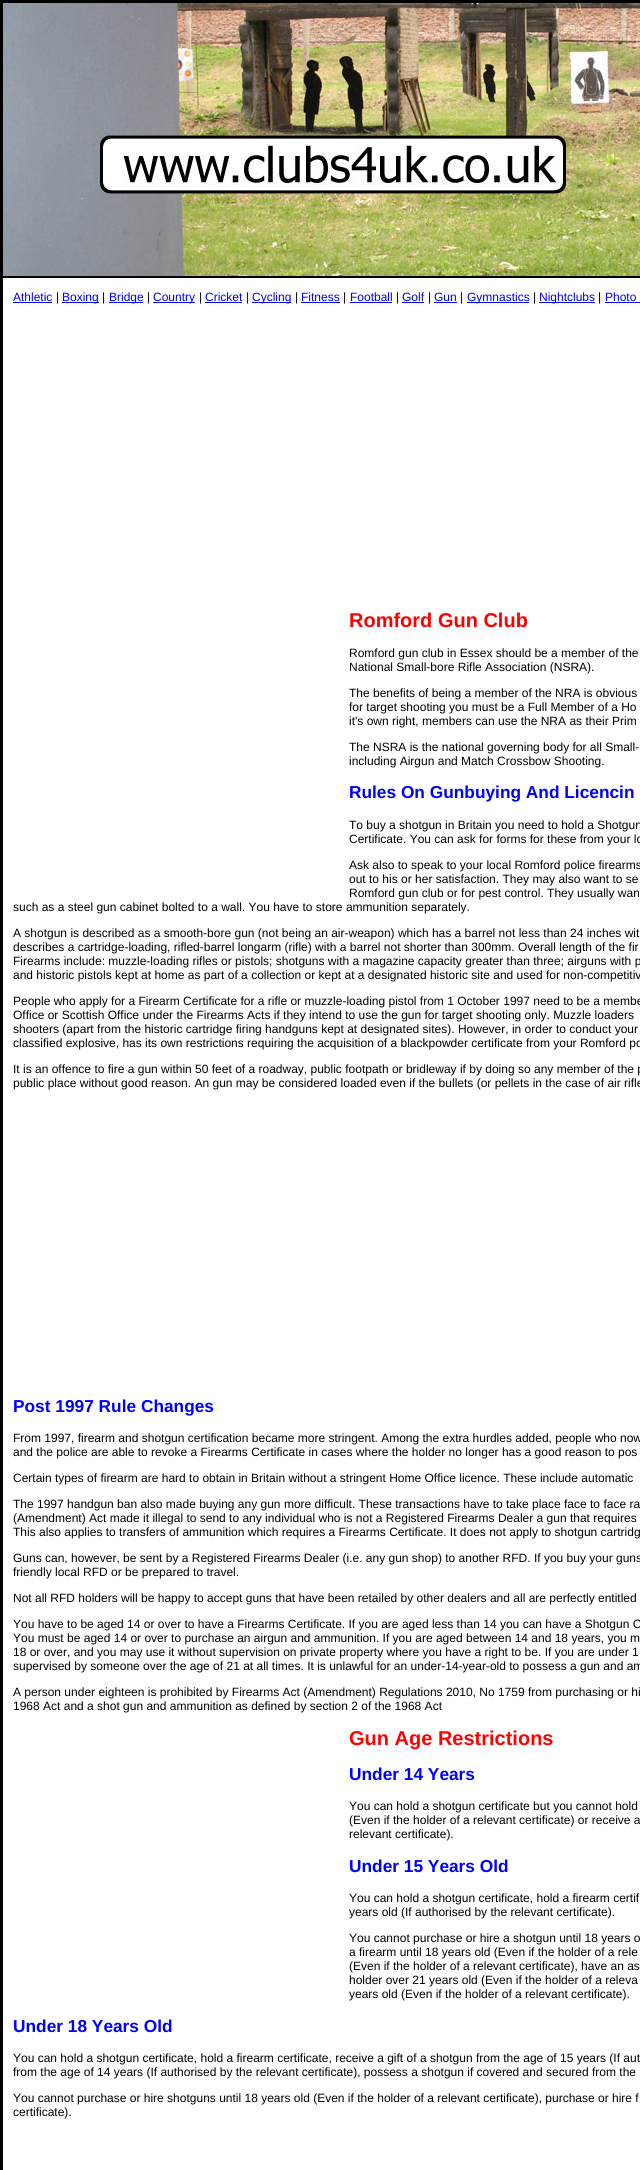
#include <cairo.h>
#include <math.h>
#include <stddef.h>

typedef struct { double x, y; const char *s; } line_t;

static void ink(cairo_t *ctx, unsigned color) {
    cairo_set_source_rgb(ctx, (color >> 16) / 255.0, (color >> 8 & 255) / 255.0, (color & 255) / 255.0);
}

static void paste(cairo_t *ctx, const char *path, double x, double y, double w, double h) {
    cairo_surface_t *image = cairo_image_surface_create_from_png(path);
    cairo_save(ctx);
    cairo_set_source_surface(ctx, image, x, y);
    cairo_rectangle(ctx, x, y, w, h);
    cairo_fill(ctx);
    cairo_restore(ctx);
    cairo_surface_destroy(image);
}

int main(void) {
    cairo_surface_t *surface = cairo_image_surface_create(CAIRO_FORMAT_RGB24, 640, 2170);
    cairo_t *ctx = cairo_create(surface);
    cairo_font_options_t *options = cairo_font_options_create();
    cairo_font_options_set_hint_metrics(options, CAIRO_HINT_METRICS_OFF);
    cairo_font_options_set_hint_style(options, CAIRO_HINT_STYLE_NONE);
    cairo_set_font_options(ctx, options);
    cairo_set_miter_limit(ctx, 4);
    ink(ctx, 0xFFFFFF);
    cairo_paint(ctx);
    cairo_rectangle(ctx, 1, 1, 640, 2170);
    ink(ctx, 0x000000);
    cairo_stroke(ctx);
    cairo_rectangle(ctx, 2.5, 2.5, 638, 274);
    cairo_set_line_width(ctx, 1);
    cairo_stroke(ctx);
    paste(ctx, "media/1.png", 3, 3, 637, 273);
    cairo_rectangle(ctx, 2.5, 277.5, 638, 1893);
    cairo_stroke(ctx);
    cairo_select_font_face(ctx, "Liberation Sans", CAIRO_FONT_SLANT_NORMAL, CAIRO_FONT_WEIGHT_NORMAL);
    cairo_set_font_size(ctx, 12);
    ink(ctx, 0x0000EE);
    cairo_move_to(ctx, 13, 301);
    cairo_show_text(ctx, "Athletic");
    cairo_rectangle(ctx, 13, 302, 39, 1);
    cairo_fill(ctx);
    ink(ctx, 0x000000);
    cairo_move_to(ctx, 56, 301);
    cairo_show_text(ctx, "|");
    ink(ctx, 0x0000EE);
    cairo_rectangle(ctx, 62, 302, 37, 1);
    cairo_fill(ctx);
    cairo_move_to(ctx, 62, 301);
    cairo_show_text(ctx, "Boxing");
    ink(ctx, 0x000000);
    cairo_move_to(ctx, 102, 301);
    cairo_show_text(ctx, "|");
    ink(ctx, 0x0000EE);
    cairo_rectangle(ctx, 109, 302, 34, 1);
    cairo_fill(ctx);
    cairo_move_to(ctx, 109, 301);
    cairo_show_text(ctx, "Bridge");
    ink(ctx, 0x000000);
    cairo_move_to(ctx, 147, 301);
    cairo_show_text(ctx, "|");
    ink(ctx, 0x0000EE);
    cairo_rectangle(ctx, 153, 302, 42, 1);
    cairo_fill(ctx);
    cairo_move_to(ctx, 153, 301);
    cairo_show_text(ctx, "Country");
    ink(ctx, 0x000000);
    cairo_move_to(ctx, 199, 301);
    cairo_show_text(ctx, "|");
    ink(ctx, 0x0000EE);
    cairo_move_to(ctx, 205, 301);
    cairo_show_text(ctx, "Cricket");
    cairo_rectangle(ctx, 205, 302, 37, 1);
    cairo_fill(ctx);
    ink(ctx, 0x000000);
    cairo_move_to(ctx, 246, 301);
    cairo_show_text(ctx, "|");
    ink(ctx, 0x0000EE);
    cairo_rectangle(ctx, 252, 302, 39, 1);
    cairo_fill(ctx);
    cairo_move_to(ctx, 252, 301);
    cairo_show_text(ctx, "Cycling");
    ink(ctx, 0x000000);
    cairo_move_to(ctx, 295, 301);
    cairo_show_text(ctx, "|");
    ink(ctx, 0x0000EE);
    cairo_move_to(ctx, 301, 301);
    cairo_show_text(ctx, "Fitness");
    cairo_rectangle(ctx, 301, 302, 39, 1);
    cairo_fill(ctx);
    ink(ctx, 0x000000);
    cairo_move_to(ctx, 343, 301);
    cairo_show_text(ctx, "|");
    ink(ctx, 0x0000EE);
    cairo_move_to(ctx, 350, 301);
    cairo_show_text(ctx, "Football");
    cairo_rectangle(ctx, 350, 302, 42, 1);
    cairo_fill(ctx);
    ink(ctx, 0x000000);
    cairo_move_to(ctx, 396, 301);
    cairo_show_text(ctx, "|");
    ink(ctx, 0x0000EE);
    cairo_move_to(ctx, 402, 301);
    cairo_show_text(ctx, "Golf");
    cairo_rectangle(ctx, 402, 302, 22, 1);
    cairo_fill(ctx);
    ink(ctx, 0x000000);
    cairo_move_to(ctx, 428, 301);
    cairo_show_text(ctx, "|");
    ink(ctx, 0x0000EE);
    cairo_move_to(ctx, 434, 301);
    cairo_show_text(ctx, "Gun");
    cairo_rectangle(ctx, 434, 302, 23, 1);
    cairo_fill(ctx);
    ink(ctx, 0x000000);
    cairo_move_to(ctx, 460, 301);
    cairo_show_text(ctx, "|");
    ink(ctx, 0x0000EE);
    cairo_rectangle(ctx, 467, 302, 62, 1);
    cairo_fill(ctx);
    cairo_move_to(ctx, 467, 301);
    cairo_show_text(ctx, "Gymnastics");
    ink(ctx, 0x000000);
    cairo_move_to(ctx, 533, 301);
    cairo_show_text(ctx, "|");
    ink(ctx, 0x0000EE);
    cairo_rectangle(ctx, 539, 302, 56, 1);
    cairo_fill(ctx);
    cairo_move_to(ctx, 539, 301);
    cairo_show_text(ctx, "Nightclubs");
    ink(ctx, 0x000000);
    cairo_move_to(ctx, 598, 301);
    cairo_show_text(ctx, "|");
    ink(ctx, 0x0000EE);
    cairo_move_to(ctx, 605, 301);
    cairo_show_text(ctx, "Photo");
    cairo_rectangle(ctx, 605, 302, 35, 1);
    cairo_fill(ctx);
    cairo_select_font_face(ctx, "Liberation Sans", CAIRO_FONT_SLANT_NORMAL, CAIRO_FONT_WEIGHT_BOLD);
    cairo_set_font_size(ctx, 20);
    ink(ctx, 0xFF0000);
    cairo_move_to(ctx, 349, 627);
    cairo_show_text(ctx, "Romford Gun Club");
    cairo_select_font_face(ctx, "Liberation Sans", CAIRO_FONT_SLANT_NORMAL, CAIRO_FONT_WEIGHT_NORMAL);
    cairo_set_font_size(ctx, 12);
    ink(ctx, 0x000000);
    {
        static const line_t items[] = {
            {349, 657, "Romford gun club in Essex should be a member of the"},
            {349, 671, "National Small-bore Rifle Association (NSRA)."},
            {349, 697, "The benefits of being a member of the NRA is obvious"},
            {349, 711, "for target shooting you must be a Full Member of a Ho"},
            {349, 725, "it's own right, members can use the NRA as their Prim"},
            {349, 751, "The NSRA is the national governing body for all Small-"},
            {349, 765, "including Airgun and Match Crossbow Shooting."},
        };
        for (size_t i = 0; i < sizeof items / sizeof *items; i++) {
            cairo_move_to(ctx, items[i].x, items[i].y);
            cairo_show_text(ctx, items[i].s);
        }
    }
    cairo_select_font_face(ctx, "Liberation Sans", CAIRO_FONT_SLANT_NORMAL, CAIRO_FONT_WEIGHT_BOLD);
    cairo_set_font_size(ctx, 17.3);
    ink(ctx, 0x0000FF);
    cairo_move_to(ctx, 349, 798);
    cairo_show_text(ctx, "Rules On Gunbuying And Licencin");
    cairo_select_font_face(ctx, "Liberation Sans", CAIRO_FONT_SLANT_NORMAL, CAIRO_FONT_WEIGHT_NORMAL);
    cairo_set_font_size(ctx, 12);
    ink(ctx, 0x000000);
    {
        static const line_t items[] = {
            {349, 829, "To buy a shotgun in Britain you need to hold a Shotgun"},
            {349, 843, "Certificate. You can ask for forms for these from your lo"},
            {349, 869, "Ask also to speak to your local Romford police firearms"},
            {349, 883, "out to his or her satisfaction. They may also want to se"},
            {349, 897, "Romford gun club or for pest control. They usually wan"},
            {13, 911, "such as a steel gun cabinet bolted to a wall. You have to store ammunition separately."},
            {13, 937, "A shotgun is described as a smooth-bore gun (not being an air-weapon) which has a barrel not less than 24 inches wit"},
            {13, 951, "describes a cartridge-loading, rifled-barrel longarm (rifle) with a barrel not shorter than 300mm. Overall length of the fir"},
            {13, 965, "Firearms include: muzzle-loading rifles or pistols; shotguns with a magazine capacity greater than three; airguns with p"},
            {13, 979, "and historic pistols kept at home as part of a collection or kept at a designated historic site and used for non-competitiv"},
            {13, 1005, "People who apply for a Firearm Certificate for a rifle or muzzle-loading pistol from 1 October 1997 need to be a membe"},
            {13, 1019, "Office or Scottish Office under the Firearms Acts if they intend to use the gun for target shooting only. Muzzle loaders"},
            {13, 1033, "shooters (apart from the historic cartridge firing handguns kept at designated sites). However, in order to conduct your"},
            {13, 1047, "classified explosive, has its own restrictions requiring the acquisition of a blackpowder certificate from your Romford po"},
            {13, 1073, "It is an offence to fire a gun within 50 feet of a roadway, public footpath or bridleway if by doing so any member of the p"},
            {13, 1087, "public place without good reason. An gun may be considered loaded even if the bullets (or pellets in the case of air rifle"},
        };
        for (size_t i = 0; i < sizeof items / sizeof *items; i++) {
            cairo_move_to(ctx, items[i].x, items[i].y);
            cairo_show_text(ctx, items[i].s);
        }
    }
    cairo_select_font_face(ctx, "Liberation Sans", CAIRO_FONT_SLANT_NORMAL, CAIRO_FONT_WEIGHT_BOLD);
    cairo_set_font_size(ctx, 17.3);
    ink(ctx, 0x0000FF);
    cairo_move_to(ctx, 13, 1412);
    cairo_show_text(ctx, "Post 1997 Rule Changes");
    cairo_select_font_face(ctx, "Liberation Sans", CAIRO_FONT_SLANT_NORMAL, CAIRO_FONT_WEIGHT_NORMAL);
    cairo_set_font_size(ctx, 12);
    ink(ctx, 0x000000);
    {
        static const line_t items[] = {
            {13, 1442, "From 1997, firearm and shotgun certification became more stringent. Among the extra hurdles added, people who now"},
            {13, 1456, "and the police are able to revoke a Firearms Certificate in cases where the holder no longer has a good reason to pos"},
            {13, 1482, "Certain types of firearm are hard to obtain in Britain without a stringent Home Office licence. These include automatic"},
            {13, 1508, "The 1997 handgun ban also made buying any gun more difficult. These transactions have to take place face to face ra"},
            {13, 1522, "(Amendment) Act made it illegal to send to any individual who is not a Registered Firearms Dealer a gun that requires"},
            {13, 1536, "This also applies to transfers of ammunition which requires a Firearms Certificate. It does not apply to shotgun cartridg"},
            {13, 1562, "Guns can, however, be sent by a Registered Firearms Dealer (i.e. any gun shop) to another RFD. If you buy your guns"},
            {13, 1576, "friendly local RFD or be prepared to travel."},
            {13, 1602, "Not all RFD holders will be happy to accept guns that have been retailed by other dealers and all are perfectly entitled"},
            {13, 1628, "You have to be aged 14 or over to have a Firearms Certificate. If you are aged less than 14 you can have a Shotgun C"},
            {13, 1642, "You must be aged 14 or over to purchase an airgun and ammunition. If you are aged between 14 and 18 years, you m"},
            {13, 1656, "18 or over, and you may use it without supervision on private property where you have a right to be. If you are under 1"},
            {13, 1670, "supervised by someone over the age of 21 at all times. It is unlawful for an under-14-year-old to possess a gun and am"},
            {13, 1696, "A person under eighteen is prohibited by Firearms Act (Amendment) Regulations 2010, No 1759 from purchasing or hi"},
            {13, 1710, "1968 Act and a shot gun and ammunition as defined by section 2 of the 1968 Act"},
        };
        for (size_t i = 0; i < sizeof items / sizeof *items; i++) {
            cairo_move_to(ctx, items[i].x, items[i].y);
            cairo_show_text(ctx, items[i].s);
        }
    }
    cairo_select_font_face(ctx, "Liberation Sans", CAIRO_FONT_SLANT_NORMAL, CAIRO_FONT_WEIGHT_BOLD);
    cairo_set_font_size(ctx, 20);
    ink(ctx, 0xFF0000);
    cairo_move_to(ctx, 349, 1745);
    cairo_show_text(ctx, "Gun Age Restrictions");
    cairo_set_font_size(ctx, 17.3);
    ink(ctx, 0x0000FF);
    cairo_move_to(ctx, 349, 1780);
    cairo_show_text(ctx, "Under 14 Years");
    cairo_select_font_face(ctx, "Liberation Sans", CAIRO_FONT_SLANT_NORMAL, CAIRO_FONT_WEIGHT_NORMAL);
    cairo_set_font_size(ctx, 12);
    ink(ctx, 0x000000);
    {
        static const line_t items[] = {
            {349, 1810, "You can hold a shotgun certificate but you cannot hold"},
            {349, 1824, "(Even if the holder of a relevant certificate) or receive a"},
            {349, 1838, "relevant certificate)."},
        };
        for (size_t i = 0; i < sizeof items / sizeof *items; i++) {
            cairo_move_to(ctx, items[i].x, items[i].y);
            cairo_show_text(ctx, items[i].s);
        }
    }
    cairo_select_font_face(ctx, "Liberation Sans", CAIRO_FONT_SLANT_NORMAL, CAIRO_FONT_WEIGHT_BOLD);
    cairo_set_font_size(ctx, 17.3);
    ink(ctx, 0x0000FF);
    cairo_move_to(ctx, 349, 1872);
    cairo_show_text(ctx, "Under 15 Years Old");
    cairo_select_font_face(ctx, "Liberation Sans", CAIRO_FONT_SLANT_NORMAL, CAIRO_FONT_WEIGHT_NORMAL);
    cairo_set_font_size(ctx, 12);
    ink(ctx, 0x000000);
    {
        static const line_t items[] = {
            {349, 1902, "You can hold a shotgun certificate, hold a firearm certif"},
            {349, 1916, "years old (If authorised by the relevant certificate)."},
            {349, 1942, "You cannot purchase or hire a shotgun until 18 years o"},
            {349, 1956, "a firearm until 18 years old (Even if the holder of a rele"},
            {349, 1970, "(Even if the holder of a relevant certificate), have an as"},
            {349, 1984, "holder over 21 years old (Even if the holder of a releva"},
            {349, 1998, "years old (Even if the holder of a relevant certificate)."},
        };
        for (size_t i = 0; i < sizeof items / sizeof *items; i++) {
            cairo_move_to(ctx, items[i].x, items[i].y);
            cairo_show_text(ctx, items[i].s);
        }
    }
    cairo_select_font_face(ctx, "Liberation Sans", CAIRO_FONT_SLANT_NORMAL, CAIRO_FONT_WEIGHT_BOLD);
    cairo_set_font_size(ctx, 17.3);
    ink(ctx, 0x0000FF);
    cairo_move_to(ctx, 13, 2032);
    cairo_show_text(ctx, "Under 18 Years Old");
    cairo_select_font_face(ctx, "Liberation Sans", CAIRO_FONT_SLANT_NORMAL, CAIRO_FONT_WEIGHT_NORMAL);
    cairo_set_font_size(ctx, 12);
    ink(ctx, 0x000000);
    {
        static const line_t items[] = {
            {13, 2062, "You can hold a shotgun certificate, hold a firearm certificate, receive a gift of a shotgun from the age of 15 years (If aut"},
            {13, 2076, "from the age of 14 years (If authorised by the relevant certificate), possess a shotgun if covered and secured from the"},
            {13, 2102, "You cannot purchase or hire shotguns until 18 years old (Even if the holder of a relevant certificate), purchase or hire f"},
            {13, 2116, "certificate)."},
        };
        for (size_t i = 0; i < sizeof items / sizeof *items; i++) {
            cairo_move_to(ctx, items[i].x, items[i].y);
            cairo_show_text(ctx, items[i].s);
        }
    }
    cairo_surface_write_to_png(surface, "image.png");
    cairo_font_options_destroy(options);
    cairo_destroy(ctx);
    cairo_surface_destroy(surface);
    return 0;
}
